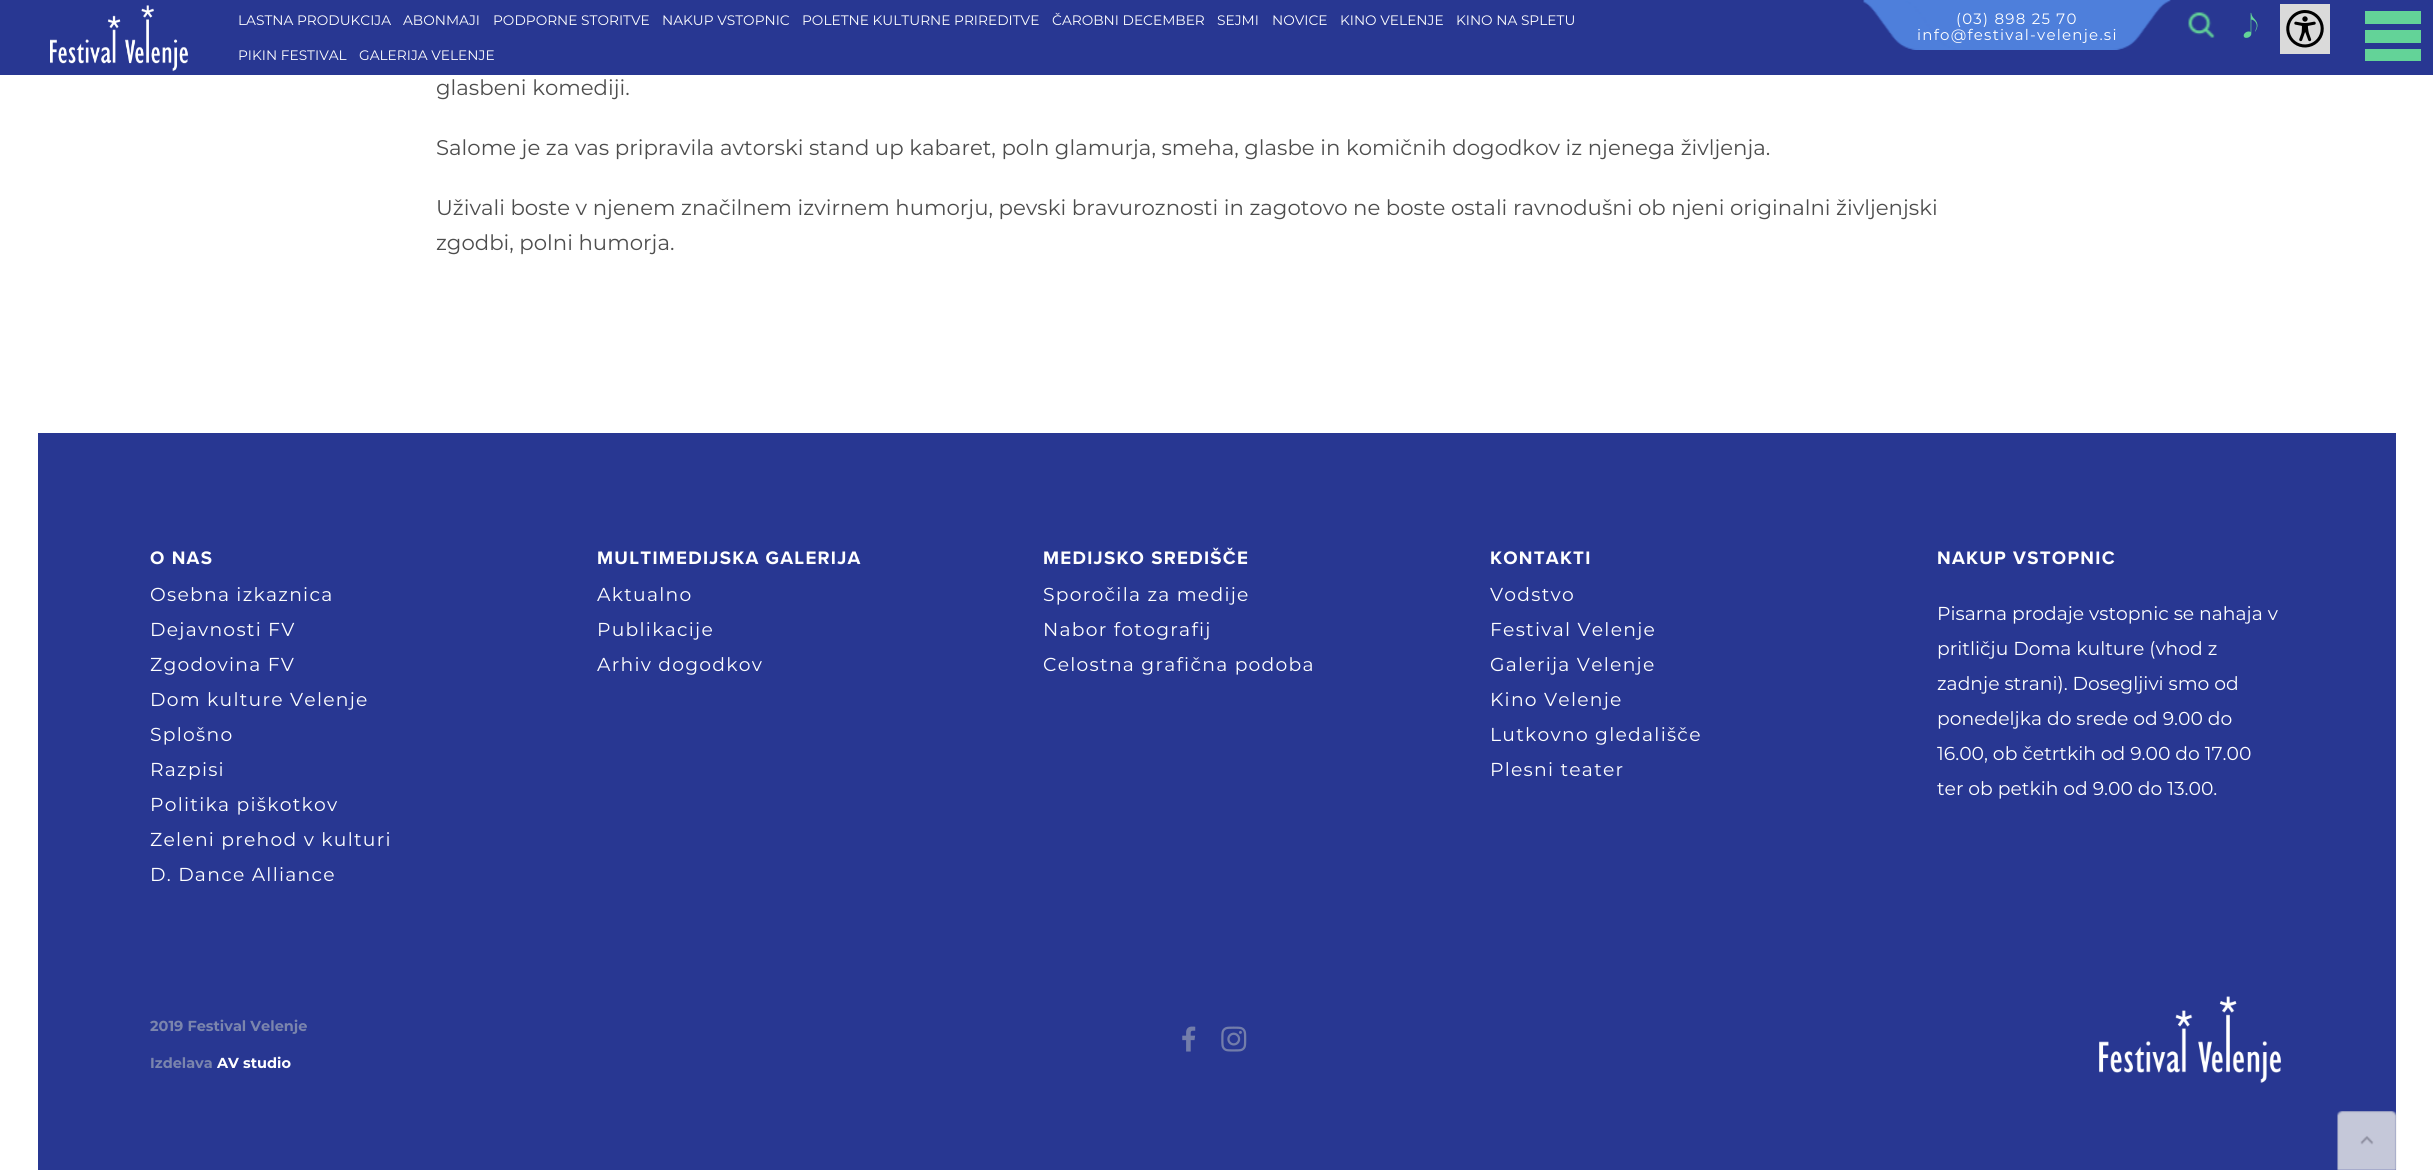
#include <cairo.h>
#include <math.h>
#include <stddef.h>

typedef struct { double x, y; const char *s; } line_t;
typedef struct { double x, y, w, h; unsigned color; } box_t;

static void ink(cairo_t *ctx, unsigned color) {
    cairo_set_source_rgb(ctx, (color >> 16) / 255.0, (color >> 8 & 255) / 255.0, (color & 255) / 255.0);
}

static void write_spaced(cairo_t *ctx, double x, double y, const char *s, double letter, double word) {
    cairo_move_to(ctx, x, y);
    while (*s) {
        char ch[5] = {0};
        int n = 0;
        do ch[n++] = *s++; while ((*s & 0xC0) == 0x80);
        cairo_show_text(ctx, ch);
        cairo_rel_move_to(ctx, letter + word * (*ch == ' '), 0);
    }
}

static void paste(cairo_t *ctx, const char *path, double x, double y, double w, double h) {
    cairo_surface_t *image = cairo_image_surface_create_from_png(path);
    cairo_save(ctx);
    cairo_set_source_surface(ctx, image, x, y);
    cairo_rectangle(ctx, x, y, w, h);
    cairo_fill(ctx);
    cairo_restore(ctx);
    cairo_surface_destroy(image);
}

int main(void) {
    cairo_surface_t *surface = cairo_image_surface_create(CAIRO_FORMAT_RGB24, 2433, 1170);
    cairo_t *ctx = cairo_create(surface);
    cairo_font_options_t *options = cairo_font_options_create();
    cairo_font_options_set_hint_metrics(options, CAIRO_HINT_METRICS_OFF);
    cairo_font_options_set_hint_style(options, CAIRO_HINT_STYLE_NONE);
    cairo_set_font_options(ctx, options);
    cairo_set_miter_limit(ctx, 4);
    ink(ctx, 0xFFFFFF);
    cairo_paint(ctx);
    ink(ctx, 0x283792);
    cairo_rectangle(ctx, 0, 0, 2433, 75);
    cairo_fill(ctx);
    paste(ctx, "media/1.png", 50, 5, 138, 67);
    cairo_select_font_face(ctx, "Montserrat", CAIRO_FONT_SLANT_NORMAL, CAIRO_FONT_WEIGHT_NORMAL);
    cairo_set_font_size(ctx, 13.75);
    ink(ctx, 0xFFFFFF);
    {
        static const line_t items[] = {
            {238, 25, "LASTNA PRODUKCIJA"},
            {403, 25, "ABONMAJI"},
            {493, 25, "PODPORNE STORITVE"},
            {662, 25, "NAKUP VSTOPNIC"},
            {802, 25, "POLETNE KULTURNE PRIREDITVE"},
            {1052, 25, "ČAROBNI DECEMBER"},
            {1217, 25, "SEJMI"},
            {1272, 25, "NOVICE"},
            {1340, 25, "KINO VELENJE"},
            {1456, 25, "KINO NA SPLETU"},
            {238, 60, "PIKIN FESTIVAL"},
            {359, 60, "GALERIJA VELENJE"},
        };
        for (size_t i = 0; i < sizeof items / sizeof *items; i++) {
            cairo_move_to(ctx, items[i].x, items[i].y);
            cairo_show_text(ctx, items[i].s);
        }
    }
    {
        static const box_t items[] = {
            {2365, 30, 56, 13, 0x63D398},
            {2365, 11, 56, 13, 0x63D398},
            {2365, 49, 56, 12, 0x63D398},
        };
        for (size_t i = 0; i < sizeof items / sizeof *items; i++) {
            ink(ctx, items[i].color);
            cairo_rectangle(ctx, items[i].x, items[i].y, items[i].w, items[i].h);
            cairo_fill(ctx);
        }
    }
    paste(ctx, "media/2.png", 1863, 0, 308, 50);
    cairo_set_font_size(ctx, 15);
    ink(ctx, 0xFFFFFF);
    write_spaced(ctx, 1956, 24, "(03) 898 25 70", 1.25, 0);
    write_spaced(ctx, 1917, 40, "info@festival-velenje.si", 1.25, 0);
    paste(ctx, "media/3.png", 2188, 12, 27, 26);
    paste(ctx, "media/4.png", 2243, 12, 15, 26);
    ink(ctx, 0xDADADA);
    cairo_rectangle(ctx, 2280, 4, 50, 50);
    cairo_fill(ctx);
    paste(ctx, "media/5.png", 2286, 10, 38, 38);
    cairo_set_font_size(ctx, 21.25);
    ink(ctx, 0x4D4D4D);
    {
        static const line_t items[] = {
            {436, 95, "glasbeni komediji."},
            {436, 155, "Salome je za vas pripravila avtorski stand up kabaret, poln glamurja, smeha, glasbe in komičnih dogodkov iz njenega življenja."},
            {436, 215, "Uživali boste v njenem značilnem izvirnem humorju, pevski bravuroznosti in zagotovo ne boste ostali ravnodušni ob njeni originalni življenjski"},
            {436, 250, "zgodbi, polni humorja."},
        };
        for (size_t i = 0; i < sizeof items / sizeof *items; i++) {
            cairo_move_to(ctx, items[i].x, items[i].y);
            cairo_show_text(ctx, items[i].s);
        }
    }
    ink(ctx, 0x283792);
    cairo_rectangle(ctx, 38, 433, 2358, 737);
    cairo_fill(ctx);
    cairo_select_font_face(ctx, "Proxima Nova", CAIRO_FONT_SLANT_NORMAL, CAIRO_FONT_WEIGHT_BOLD);
    cairo_set_font_size(ctx, 18.75);
    ink(ctx, 0xFFFFFF);
    write_spaced(ctx, 150, 564, "O NAS", 1.25, 0);
    cairo_select_font_face(ctx, "Montserrat", CAIRO_FONT_SLANT_NORMAL, CAIRO_FONT_WEIGHT_NORMAL);
    {
        static const line_t items[] = {
            {150, 601, "Osebna izkaznica"},
            {150, 636, "Dejavnosti FV"},
            {150, 671, "Zgodovina FV"},
            {150, 706, "Dom kulture Velenje"},
            {150, 741, "Splošno"},
            {150, 776, "Razpisi"},
            {150, 811, "Politika piškotkov"},
            {150, 846, "Zeleni prehod v kulturi"},
            {150, 881, "D. Dance Alliance"},
        };
        for (size_t i = 0; i < sizeof items / sizeof *items; i++) {
            write_spaced(ctx, items[i].x, items[i].y, items[i].s, 1.25, 0);
        }
    }
    cairo_select_font_face(ctx, "Proxima Nova", CAIRO_FONT_SLANT_NORMAL, CAIRO_FONT_WEIGHT_BOLD);
    write_spaced(ctx, 597, 564, "MULTIMEDIJSKA GALERIJA", 1.25, 0);
    cairo_select_font_face(ctx, "Montserrat", CAIRO_FONT_SLANT_NORMAL, CAIRO_FONT_WEIGHT_NORMAL);
    {
        static const line_t items[] = {
            {597, 601, "Aktualno"},
            {597, 636, "Publikacije"},
            {597, 671, "Arhiv dogodkov"},
        };
        for (size_t i = 0; i < sizeof items / sizeof *items; i++) {
            write_spaced(ctx, items[i].x, items[i].y, items[i].s, 1.25, 0);
        }
    }
    cairo_select_font_face(ctx, "Proxima Nova", CAIRO_FONT_SLANT_NORMAL, CAIRO_FONT_WEIGHT_BOLD);
    write_spaced(ctx, 1043, 564, "MEDIJSKO SREDIŠČE", 1.25, 0);
    cairo_select_font_face(ctx, "Montserrat", CAIRO_FONT_SLANT_NORMAL, CAIRO_FONT_WEIGHT_NORMAL);
    {
        static const line_t items[] = {
            {1043, 601, "Sporočila za medije"},
            {1043, 636, "Nabor fotografij"},
            {1043, 671, "Celostna grafična podoba"},
        };
        for (size_t i = 0; i < sizeof items / sizeof *items; i++) {
            write_spaced(ctx, items[i].x, items[i].y, items[i].s, 1.25, 0);
        }
    }
    cairo_select_font_face(ctx, "Proxima Nova", CAIRO_FONT_SLANT_NORMAL, CAIRO_FONT_WEIGHT_BOLD);
    write_spaced(ctx, 1490, 564, "KONTAKTI", 1.25, 0);
    cairo_select_font_face(ctx, "Montserrat", CAIRO_FONT_SLANT_NORMAL, CAIRO_FONT_WEIGHT_NORMAL);
    {
        static const line_t items[] = {
            {1490, 601, "Vodstvo"},
            {1490, 636, "Festival Velenje"},
            {1490, 671, "Galerija Velenje"},
            {1490, 706, "Kino Velenje"},
            {1490, 741, "Lutkovno gledališče"},
            {1490, 776, "Plesni teater"},
        };
        for (size_t i = 0; i < sizeof items / sizeof *items; i++) {
            write_spaced(ctx, items[i].x, items[i].y, items[i].s, 1.25, 0);
        }
    }
    cairo_select_font_face(ctx, "Proxima Nova", CAIRO_FONT_SLANT_NORMAL, CAIRO_FONT_WEIGHT_BOLD);
    write_spaced(ctx, 1937, 564, "NAKUP VSTOPNIC", 1.25, 0);
    cairo_select_font_face(ctx, "Montserrat", CAIRO_FONT_SLANT_NORMAL, CAIRO_FONT_WEIGHT_NORMAL);
    {
        static const line_t items[] = {
            {1937, 620, "Pisarna prodaje vstopnic se nahaja v"},
            {1937, 655, "pritličju Doma kulture (vhod z"},
            {1937, 690, "zadnje strani). Dosegljivi smo od"},
            {1937, 725, "ponedeljka do srede od 9.00 do"},
            {1937, 760, "16.00, ob četrtkih od 9.00 do 17.00"},
            {1937, 795, "ter ob petkih od 9.00 do 13.00."},
        };
        for (size_t i = 0; i < sizeof items / sizeof *items; i++) {
            cairo_move_to(ctx, items[i].x, items[i].y);
            cairo_show_text(ctx, items[i].s);
        }
    }
    cairo_select_font_face(ctx, "Montserrat", CAIRO_FONT_SLANT_NORMAL, CAIRO_FONT_WEIGHT_BOLD);
    cairo_set_font_size(ctx, 14.5);
    ink(ctx, 0x7B85AD);
    cairo_move_to(ctx, 150, 1031);
    cairo_show_text(ctx, "2019 Festival Velenje");
    cairo_move_to(ctx, 150, 1068);
    cairo_show_text(ctx, "Izdelava");
    ink(ctx, 0xFFFFFF);
    cairo_move_to(ctx, 217, 1068);
    cairo_show_text(ctx, "AV studio");
    paste(ctx, "media/6.png", 1182, 1026, 14, 26);
    paste(ctx, "media/7.png", 1221, 1026, 26, 26);
    paste(ctx, "media/8.png", 2099, 996, 182, 87);
    paste(ctx, "media/9.png", 2337, 1111, 60, 59);
    cairo_surface_write_to_png(surface, "image.png");
    cairo_font_options_destroy(options);
    cairo_destroy(ctx);
    cairo_surface_destroy(surface);
    return 0;
}
